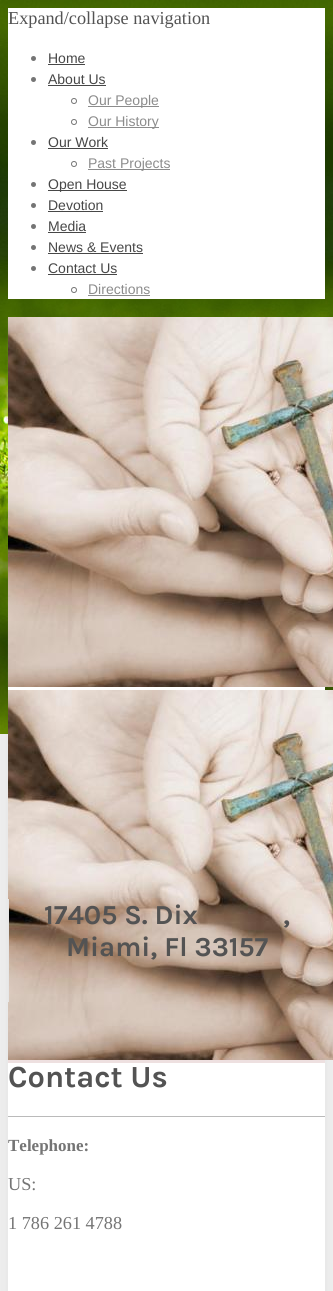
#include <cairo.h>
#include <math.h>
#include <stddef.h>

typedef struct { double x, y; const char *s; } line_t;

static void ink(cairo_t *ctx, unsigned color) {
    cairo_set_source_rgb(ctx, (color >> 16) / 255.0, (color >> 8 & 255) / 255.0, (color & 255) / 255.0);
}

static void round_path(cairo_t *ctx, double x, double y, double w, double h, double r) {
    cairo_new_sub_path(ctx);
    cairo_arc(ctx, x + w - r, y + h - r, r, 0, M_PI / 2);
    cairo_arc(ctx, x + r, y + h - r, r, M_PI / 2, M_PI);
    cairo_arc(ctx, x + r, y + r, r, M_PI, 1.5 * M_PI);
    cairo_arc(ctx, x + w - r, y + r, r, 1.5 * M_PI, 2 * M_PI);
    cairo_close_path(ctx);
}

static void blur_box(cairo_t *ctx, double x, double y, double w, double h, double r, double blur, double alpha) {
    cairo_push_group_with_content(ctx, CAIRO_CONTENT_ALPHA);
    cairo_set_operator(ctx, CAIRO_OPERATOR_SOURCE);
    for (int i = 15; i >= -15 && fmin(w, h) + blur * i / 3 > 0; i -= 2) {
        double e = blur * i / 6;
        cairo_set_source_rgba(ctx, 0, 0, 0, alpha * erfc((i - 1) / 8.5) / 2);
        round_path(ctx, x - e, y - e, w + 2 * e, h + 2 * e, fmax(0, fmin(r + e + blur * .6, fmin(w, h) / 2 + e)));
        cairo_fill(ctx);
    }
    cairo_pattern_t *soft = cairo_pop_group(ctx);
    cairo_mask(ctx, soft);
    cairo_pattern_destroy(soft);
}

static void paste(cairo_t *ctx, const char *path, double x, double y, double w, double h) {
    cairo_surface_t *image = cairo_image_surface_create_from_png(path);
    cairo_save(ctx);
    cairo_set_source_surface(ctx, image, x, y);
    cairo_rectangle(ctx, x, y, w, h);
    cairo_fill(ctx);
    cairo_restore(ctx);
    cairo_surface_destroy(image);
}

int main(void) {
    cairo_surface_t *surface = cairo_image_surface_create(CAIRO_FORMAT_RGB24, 333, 1291);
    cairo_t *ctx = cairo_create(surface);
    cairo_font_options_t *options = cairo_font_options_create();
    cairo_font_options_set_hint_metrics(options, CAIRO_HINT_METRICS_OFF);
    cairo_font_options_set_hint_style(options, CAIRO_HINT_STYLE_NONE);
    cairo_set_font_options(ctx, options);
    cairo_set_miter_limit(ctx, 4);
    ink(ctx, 0xF5F5F5);
    cairo_paint(ctx);
    paste(ctx, "media/1.png", 0, 0, 333, 734);
    ink(ctx, 0xFFFFFF);
    cairo_rectangle(ctx, 8, 8, 317, 291);
    cairo_fill(ctx);
    cairo_select_font_face(ctx, "Liberation Serif", CAIRO_FONT_SLANT_NORMAL, CAIRO_FONT_WEIGHT_NORMAL);
    cairo_set_font_size(ctx, 18.25);
    ink(ctx, 0x535353);
    cairo_move_to(ctx, 8, 24);
    cairo_show_text(ctx, "Expand/collapse navigation");
    ink(ctx, 0x757575);
    cairo_new_path(ctx);
    cairo_arc(ctx, 33.5, 58.5, 2.5, 0, 2 * M_PI);
    cairo_fill(ctx);
    cairo_select_font_face(ctx, "Liberation Sans", CAIRO_FONT_SLANT_NORMAL, CAIRO_FONT_WEIGHT_NORMAL);
    cairo_set_font_size(ctx, 14);
    ink(ctx, 0x474747);
    cairo_move_to(ctx, 48, 63);
    cairo_show_text(ctx, "Home");
    cairo_rectangle(ctx, 48, 64, 37, 1);
    cairo_fill(ctx);
    ink(ctx, 0x757575);
    cairo_arc(ctx, 33.5, 79.5, 2.5, 0, 2 * M_PI);
    cairo_fill(ctx);
    ink(ctx, 0x474747);
    cairo_move_to(ctx, 48, 84);
    cairo_show_text(ctx, "About Us");
    cairo_rectangle(ctx, 48, 85, 58, 1);
    cairo_fill(ctx);
    cairo_arc(ctx, 74, 101, 2.5, 0, 2 * M_PI);
    ink(ctx, 0x757575);
    cairo_set_line_width(ctx, 1);
    cairo_stroke(ctx);
    ink(ctx, 0x8C8C8C);
    cairo_rectangle(ctx, 88, 106, 71, 1);
    cairo_fill(ctx);
    cairo_move_to(ctx, 88, 105);
    cairo_show_text(ctx, "Our People");
    cairo_new_path(ctx);
    cairo_arc(ctx, 74, 122, 2.5, 0, 2 * M_PI);
    ink(ctx, 0x757575);
    cairo_stroke(ctx);
    ink(ctx, 0x8C8C8C);
    cairo_rectangle(ctx, 88, 127, 71, 1);
    cairo_fill(ctx);
    cairo_move_to(ctx, 88, 126);
    cairo_show_text(ctx, "Our History");
    ink(ctx, 0x757575);
    cairo_new_path(ctx);
    cairo_arc(ctx, 33.5, 142.5, 2.5, 0, 2 * M_PI);
    cairo_fill(ctx);
    ink(ctx, 0x474747);
    cairo_move_to(ctx, 48, 147);
    cairo_show_text(ctx, "Our Work");
    cairo_rectangle(ctx, 48, 148, 60, 1);
    cairo_fill(ctx);
    cairo_arc(ctx, 74, 164, 2.5, 0, 2 * M_PI);
    ink(ctx, 0x757575);
    cairo_stroke(ctx);
    ink(ctx, 0x8C8C8C);
    cairo_rectangle(ctx, 88, 169, 82, 1);
    cairo_fill(ctx);
    cairo_move_to(ctx, 88, 168);
    cairo_show_text(ctx, "Past Projects");
    ink(ctx, 0x757575);
    cairo_new_path(ctx);
    cairo_arc(ctx, 33.5, 184.5, 2.5, 0, 2 * M_PI);
    cairo_fill(ctx);
    ink(ctx, 0x474747);
    cairo_rectangle(ctx, 48, 190, 79, 1);
    cairo_fill(ctx);
    cairo_move_to(ctx, 48, 189);
    cairo_show_text(ctx, "Open House");
    ink(ctx, 0x757575);
    cairo_new_path(ctx);
    cairo_arc(ctx, 33.5, 205.5, 2.5, 0, 2 * M_PI);
    cairo_fill(ctx);
    ink(ctx, 0x474747);
    cairo_move_to(ctx, 48, 210);
    cairo_show_text(ctx, "Devotion");
    cairo_rectangle(ctx, 48, 211, 55, 1);
    cairo_fill(ctx);
    ink(ctx, 0x757575);
    cairo_arc(ctx, 33.5, 226.5, 2.5, 0, 2 * M_PI);
    cairo_fill(ctx);
    ink(ctx, 0x474747);
    cairo_move_to(ctx, 48, 231);
    cairo_show_text(ctx, "Media");
    cairo_rectangle(ctx, 48, 232, 38, 1);
    cairo_fill(ctx);
    ink(ctx, 0x757575);
    cairo_arc(ctx, 33.5, 247.5, 2.5, 0, 2 * M_PI);
    cairo_fill(ctx);
    ink(ctx, 0x474747);
    cairo_move_to(ctx, 48, 252);
    cairo_show_text(ctx, "News & Events");
    cairo_rectangle(ctx, 48, 253, 95, 1);
    cairo_fill(ctx);
    ink(ctx, 0x757575);
    cairo_arc(ctx, 33.5, 268.5, 2.5, 0, 2 * M_PI);
    cairo_fill(ctx);
    ink(ctx, 0x474747);
    cairo_move_to(ctx, 48, 273);
    cairo_show_text(ctx, "Contact Us");
    cairo_rectangle(ctx, 48, 274, 69, 1);
    cairo_fill(ctx);
    cairo_arc(ctx, 74, 290, 2.5, 0, 2 * M_PI);
    ink(ctx, 0x757575);
    cairo_stroke(ctx);
    ink(ctx, 0x8C8C8C);
    cairo_move_to(ctx, 88, 294);
    cairo_show_text(ctx, "Directions");
    cairo_rectangle(ctx, 88, 295, 62, 1);
    cairo_fill(ctx);
    ink(ctx, 0x000000);
    blur_box(ctx, 8, 627, 317, 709, 0, 15, 0.1);
    ink(ctx, 0xFFFFFF);
    cairo_rectangle(ctx, 8, 687, 317, 604);
    cairo_fill(ctx);
    ink(ctx, 0xFFFFFF);
    blur_box(ctx, 8, 319, 317, 370, 0, 0.5, 0.1);
    paste(ctx, "media/2.png", 8, 317, 325, 370);
    ink(ctx, 0xEEE0E0);
    cairo_rectangle(ctx, 8, 1060, 317, 3);
    cairo_fill(ctx);
    paste(ctx, "media/2.png", 8, 690, 325, 370);
    ink(ctx, 0xE6E6E6);
    cairo_rectangle(ctx, 8, 899, 1, 103);
    cairo_fill(ctx);
    cairo_select_font_face(ctx, "Karla", CAIRO_FONT_SLANT_NORMAL, CAIRO_FONT_WEIGHT_BOLD);
    cairo_set_font_size(ctx, 27.5);
    ink(ctx, 0x535353);
    {
        static const line_t items[] = {
            {44, 924, "17405 S. Dix"},
            {283, 924, ","},
            {66, 956, "Miami, Fl 33157"},
        };
        for (size_t i = 0; i < sizeof items / sizeof *items; i++) {
            cairo_move_to(ctx, items[i].x, items[i].y);
            cairo_show_text(ctx, items[i].s);
        }
    }
    cairo_set_font_size(ctx, 30.75);
    cairo_move_to(ctx, 8, 1087);
    cairo_show_text(ctx, "Contact Us");
    ink(ctx, 0xBABABA);
    cairo_rectangle(ctx, 8, 1116, 317, 1);
    cairo_fill(ctx);
    cairo_select_font_face(ctx, "Liberation Serif", CAIRO_FONT_SLANT_NORMAL, CAIRO_FONT_WEIGHT_BOLD);
    cairo_set_font_size(ctx, 17);
    ink(ctx, 0x757575);
    cairo_move_to(ctx, 8, 1151);
    cairo_show_text(ctx, "Telephone:");
    cairo_select_font_face(ctx, "Liberation Serif", CAIRO_FONT_SLANT_NORMAL, CAIRO_FONT_WEIGHT_NORMAL);
    cairo_set_font_size(ctx, 18.25);
    cairo_move_to(ctx, 8, 1190);
    cairo_show_text(ctx, "US:");
    cairo_move_to(ctx, 8, 1229);
    cairo_show_text(ctx, "1 786 261 4788");
    cairo_surface_write_to_png(surface, "image.png");
    cairo_font_options_destroy(options);
    cairo_destroy(ctx);
    cairo_surface_destroy(surface);
    return 0;
}
